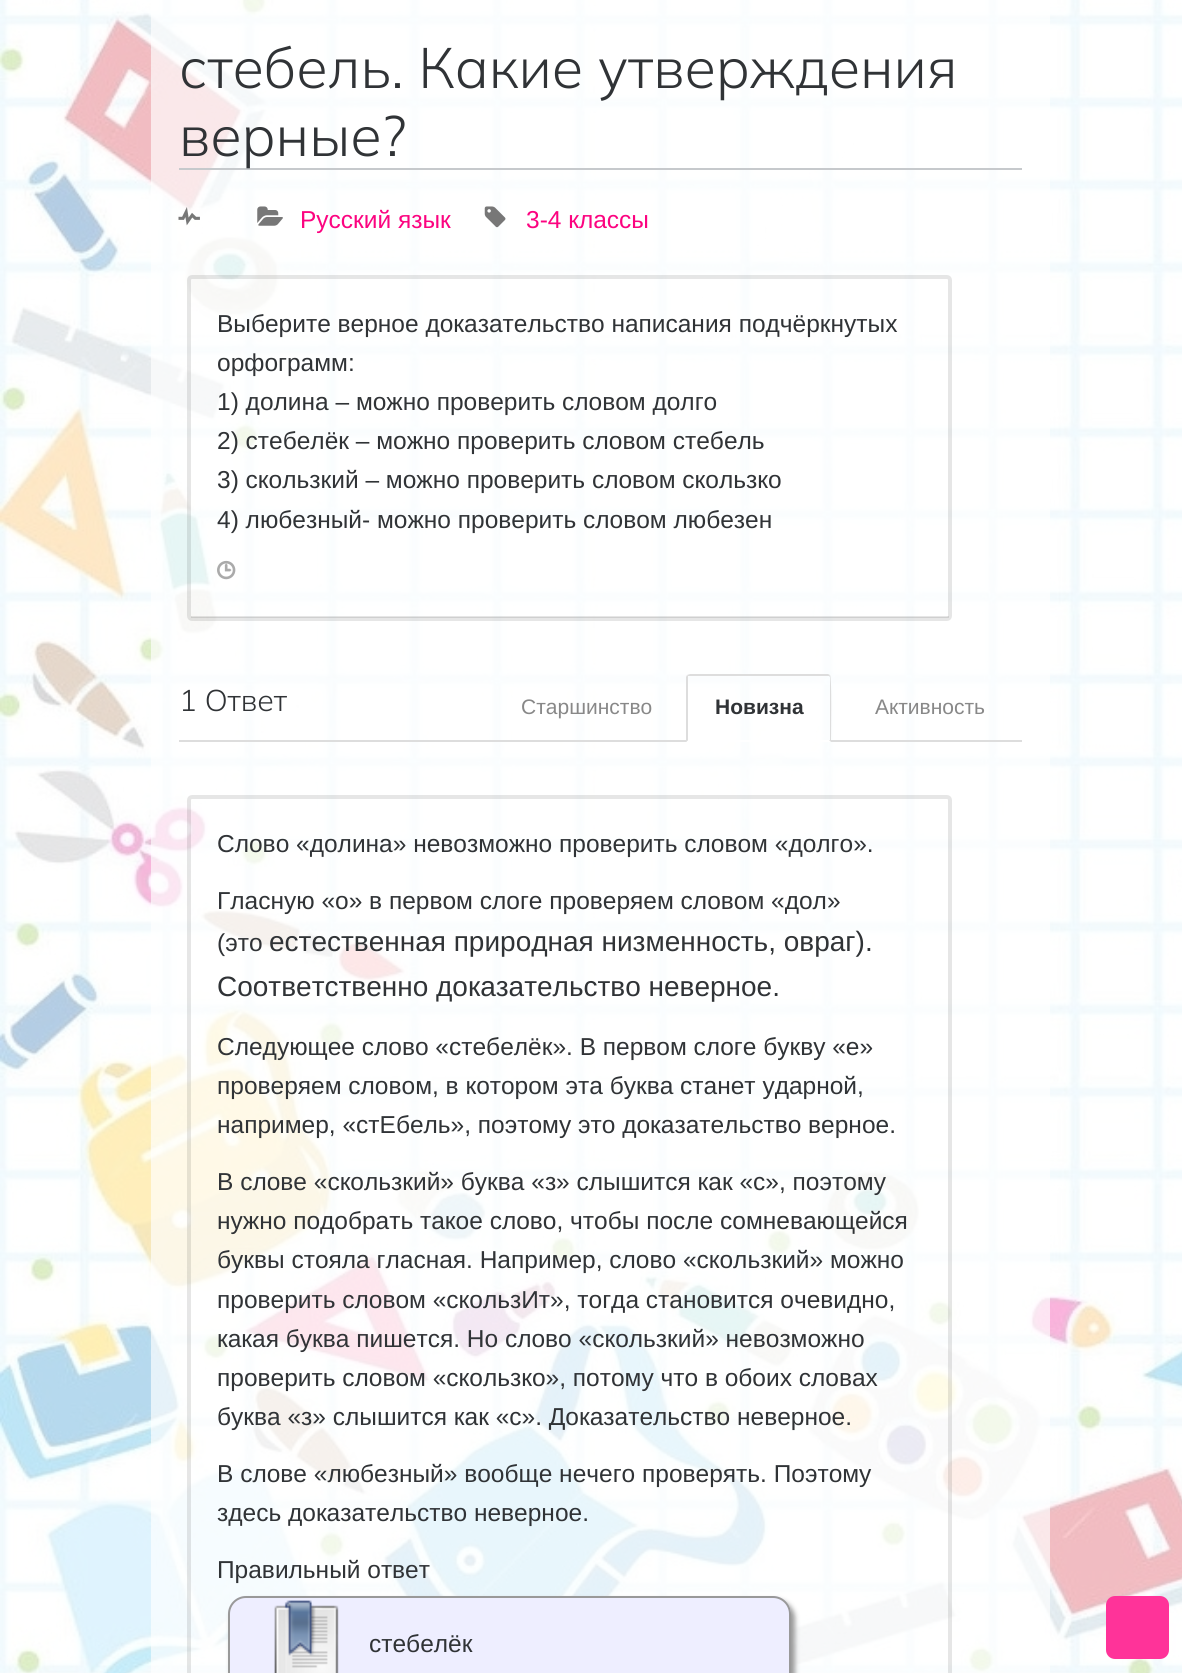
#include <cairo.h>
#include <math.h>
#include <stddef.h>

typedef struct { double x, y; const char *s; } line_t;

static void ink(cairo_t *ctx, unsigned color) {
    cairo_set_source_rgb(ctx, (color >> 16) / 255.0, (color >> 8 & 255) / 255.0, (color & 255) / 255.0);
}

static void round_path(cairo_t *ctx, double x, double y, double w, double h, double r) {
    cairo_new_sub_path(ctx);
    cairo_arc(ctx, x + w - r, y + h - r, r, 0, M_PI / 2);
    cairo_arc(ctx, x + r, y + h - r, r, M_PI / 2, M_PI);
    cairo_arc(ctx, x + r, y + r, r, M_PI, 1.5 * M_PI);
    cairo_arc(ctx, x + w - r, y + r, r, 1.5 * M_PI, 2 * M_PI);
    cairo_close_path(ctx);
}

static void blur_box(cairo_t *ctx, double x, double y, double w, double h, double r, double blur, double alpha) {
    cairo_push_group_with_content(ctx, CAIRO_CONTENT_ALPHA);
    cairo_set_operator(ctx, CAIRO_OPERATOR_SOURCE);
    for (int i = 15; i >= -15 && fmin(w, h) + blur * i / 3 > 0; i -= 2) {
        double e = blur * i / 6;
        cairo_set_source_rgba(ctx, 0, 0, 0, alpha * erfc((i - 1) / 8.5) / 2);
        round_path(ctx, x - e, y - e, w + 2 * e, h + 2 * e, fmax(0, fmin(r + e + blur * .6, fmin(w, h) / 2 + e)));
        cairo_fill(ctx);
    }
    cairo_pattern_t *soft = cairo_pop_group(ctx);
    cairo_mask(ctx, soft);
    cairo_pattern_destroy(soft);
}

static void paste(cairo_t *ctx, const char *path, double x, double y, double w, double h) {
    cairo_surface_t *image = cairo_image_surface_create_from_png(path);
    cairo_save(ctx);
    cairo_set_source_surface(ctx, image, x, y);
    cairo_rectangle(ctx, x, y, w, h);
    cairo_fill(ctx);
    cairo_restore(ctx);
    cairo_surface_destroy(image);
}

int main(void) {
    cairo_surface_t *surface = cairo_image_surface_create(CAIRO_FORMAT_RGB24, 1182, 1673);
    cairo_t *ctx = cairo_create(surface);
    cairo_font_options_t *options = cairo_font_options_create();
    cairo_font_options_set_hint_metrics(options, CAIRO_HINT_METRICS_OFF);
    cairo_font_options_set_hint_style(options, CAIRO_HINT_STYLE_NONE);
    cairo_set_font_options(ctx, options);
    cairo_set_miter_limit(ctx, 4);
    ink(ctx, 0xFFFFFF);
    cairo_paint(ctx);
    paste(ctx, "media/1.png", 0, 0, 1182, 1673);
    cairo_set_source_rgba(ctx, 1, 1, 1, 0.65);
    cairo_rectangle(ctx, 151, 0, 899, 1673);
    cairo_fill(ctx);
    ink(ctx, 0xC6C9CC);
    cairo_rectangle(ctx, 179, 168, 843, 2);
    cairo_fill(ctx);
    cairo_select_font_face(ctx, "Mulish Light", CAIRO_FONT_SLANT_NORMAL, CAIRO_FONT_WEIGHT_NORMAL);
    cairo_set_font_size(ctx, 56.9);
    ink(ctx, 0x303336);
    cairo_move_to(ctx, 179, 88);
    cairo_show_text(ctx, "стебель. Какие утверждения");
    cairo_move_to(ctx, 179, 156);
    cairo_show_text(ctx, "верные?");
    paste(ctx, "media/2.png", 178, 207, 22, 19);
    paste(ctx, "media/3.png", 257, 206, 26, 20);
    cairo_select_font_face(ctx, "Liberation Sans", CAIRO_FONT_SLANT_NORMAL, CAIRO_FONT_WEIGHT_NORMAL);
    cairo_set_font_size(ctx, 24.5);
    ink(ctx, 0xFC0380);
    cairo_move_to(ctx, 300, 228);
    cairo_show_text(ctx, "Русский язык");
    paste(ctx, "media/4.png", 484, 206, 22, 22);
    cairo_move_to(ctx, 526, 228);
    cairo_show_text(ctx, "3-4 классы");
    round_path(ctx, 189, 277, 761, 342, 3);
    cairo_set_source_rgba(ctx, 0, 0, 0, 0.1);
    cairo_set_line_width(ctx, 4);
    cairo_stroke(ctx);
    ink(ctx, 0x303336);
    {
        static const line_t items[] = {
            {217, 332, "Выберите верное доказательство написания подчёркнутых"},
            {217, 371, "орфограмм:"},
            {217, 410, "1) долина – можно проверить словом долго"},
            {217, 449, "2) стебелёк – можно проверить словом стебель"},
            {217, 488, "3) скользкий – можно проверить словом скользко"},
            {217, 528, "4) любезный- можно проверить словом любезен"},
        };
        for (size_t i = 0; i < sizeof items / sizeof *items; i++) {
            cairo_move_to(ctx, items[i].x, items[i].y);
            cairo_show_text(ctx, items[i].s);
        }
    }
    paste(ctx, "media/5.png", 217, 560, 19, 20);
    cairo_set_source_rgba(ctx, 0, 0, 0, 0.1);
    cairo_rectangle(ctx, 191, 616, 758, 2);
    cairo_fill(ctx);
    ink(ctx, 0xDDDDDD);
    cairo_rectangle(ctx, 179, 740, 843, 2);
    cairo_fill(ctx);
    cairo_select_font_face(ctx, "Mulish Light", CAIRO_FONT_SLANT_NORMAL, CAIRO_FONT_WEIGHT_NORMAL);
    cairo_set_font_size(ctx, 30);
    ink(ctx, 0x303336);
    cairo_move_to(ctx, 179, 711);
    cairo_show_text(ctx, "1 Ответ");
    cairo_select_font_face(ctx, "Liberation Sans", CAIRO_FONT_SLANT_NORMAL, CAIRO_FONT_WEIGHT_NORMAL);
    cairo_set_font_size(ctx, 21);
    ink(ctx, 0x888888);
    cairo_move_to(ctx, 521, 714);
    cairo_show_text(ctx, "Старшинство");
    ink(ctx, 0xDDDDDD);
    cairo_new_path(ctx);
    cairo_move_to(ctx, 690, 674);
    cairo_line_to(ctx, 687, 675);
    cairo_line_to(ctx, 688, 676);
    cairo_line_to(ctx, 829, 676);
    cairo_line_to(ctx, 830, 675);
    cairo_line_to(ctx, 828, 674);
    cairo_close_path(ctx);
    cairo_fill(ctx);
    cairo_new_path(ctx);
    cairo_move_to(ctx, 831, 742);
    cairo_curve_to(ctx, 831, 734, 832, 676, 830, 675);
    cairo_line_to(ctx, 829, 676);
    cairo_line_to(ctx, 830, 677);
    cairo_line_to(ctx, 830, 740);
    cairo_line_to(ctx, 829, 740);
    cairo_close_path(ctx);
    cairo_fill(ctx);
    ink(ctx, 0xFFFFFF);
    cairo_new_path(ctx);
    cairo_move_to(ctx, 831, 742);
    cairo_line_to(ctx, 829, 740);
    cairo_line_to(ctx, 688, 740);
    cairo_line_to(ctx, 686, 742);
    cairo_close_path(ctx);
    cairo_fill(ctx);
    ink(ctx, 0xDDDDDD);
    cairo_new_path(ctx);
    cairo_move_to(ctx, 686, 742);
    cairo_line_to(ctx, 688, 740);
    cairo_line_to(ctx, 688, 677);
    cairo_line_to(ctx, 688, 676);
    cairo_line_to(ctx, 687, 675);
    cairo_line_to(ctx, 686, 677);
    cairo_close_path(ctx);
    cairo_fill(ctx);
    cairo_select_font_face(ctx, "Liberation Sans", CAIRO_FONT_SLANT_NORMAL, CAIRO_FONT_WEIGHT_BOLD);
    ink(ctx, 0x303336);
    cairo_move_to(ctx, 715, 714);
    cairo_show_text(ctx, "Новизна");
    cairo_select_font_face(ctx, "Liberation Sans", CAIRO_FONT_SLANT_NORMAL, CAIRO_FONT_WEIGHT_NORMAL);
    ink(ctx, 0x888888);
    cairo_move_to(ctx, 875, 714);
    cairo_show_text(ctx, "Активность");
    round_path(ctx, 189, 797, 761, 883, 3);
    cairo_set_source_rgba(ctx, 0, 0, 0, 0.1);
    cairo_stroke(ctx);
    cairo_set_font_size(ctx, 24.5);
    ink(ctx, 0x303336);
    {
        static const line_t items[] = {
            {217, 852, "Слово «долина» невозможно проверить словом «долго»."},
            {217, 909, "Гласную «о» в первом слоге проверяем словом «дол»"},
            {217, 951, "(это"},
        };
        for (size_t i = 0; i < sizeof items / sizeof *items; i++) {
            cairo_move_to(ctx, items[i].x, items[i].y);
            cairo_show_text(ctx, items[i].s);
        }
    }
    cairo_set_font_size(ctx, 28);
    cairo_move_to(ctx, 269, 951);
    cairo_show_text(ctx, "естественная природная низменность, овраг).");
    cairo_move_to(ctx, 217, 996);
    cairo_show_text(ctx, "Соответственно доказательство неверное.");
    cairo_set_font_size(ctx, 24.5);
    {
        static const line_t items[] = {
            {217, 1055, "Следующее слово «стебелёк». В первом слоге букву «е»"},
            {217, 1094, "проверяем словом, в котором эта буква станет ударной,"},
            {217, 1133, "например, «стЕбель», поэтому это доказательство верное."},
            {217, 1190, "В слове «скользкий» буква «з» слышится как «с», поэтому"},
            {217, 1229, "нужно подобрать такое слово, чтобы после сомневающейся"},
            {217, 1268, "буквы стояла гласная. Например, слово «скользкий» можно"},
            {217, 1308, "проверить словом «скользИт», тогда становится очевидно,"},
            {217, 1347, "какая буква пишется. Но слово «скользкий» невозможно"},
            {217, 1386, "проверить словом «скользко», потому что в обоих словах"},
            {217, 1425, "буква «з» слышится как «с». Доказательство неверное."},
            {217, 1482, "В слове «любезный» вообще нечего проверять. Поэтому"},
            {217, 1521, "здесь доказательство неверное."},
            {217, 1578, "Правильный ответ"},
        };
        for (size_t i = 0; i < sizeof items / sizeof *items; i++) {
            cairo_move_to(ctx, items[i].x, items[i].y);
            cairo_show_text(ctx, items[i].s);
        }
    }
    ink(ctx, 0x999999);
    blur_box(ctx, 231, 1600, 564, 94, 18, 2.5, 1);
    ink(ctx, 0xEEEEFF);
    round_path(ctx, 228, 1596, 563, 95, 18);
    cairo_fill(ctx);
    paste(ctx, "media/6.png", 274, 1600, 65, 73);
    round_path(ctx, 229, 1597, 561, 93, 17);
    ink(ctx, 0x999999);
    cairo_set_line_width(ctx, 2);
    cairo_stroke(ctx);
    ink(ctx, 0x303336);
    cairo_move_to(ctx, 369, 1652);
    cairo_show_text(ctx, "стебелёк");
    ink(ctx, 0xFF3399);
    round_path(ctx, 1108, 1598, 59, 59, 7);
    cairo_fill_preserve(ctx);
    cairo_set_line_width(ctx, 4);
    cairo_stroke(ctx);
    cairo_surface_write_to_png(surface, "image.png");
    cairo_font_options_destroy(options);
    cairo_destroy(ctx);
    cairo_surface_destroy(surface);
    return 0;
}
